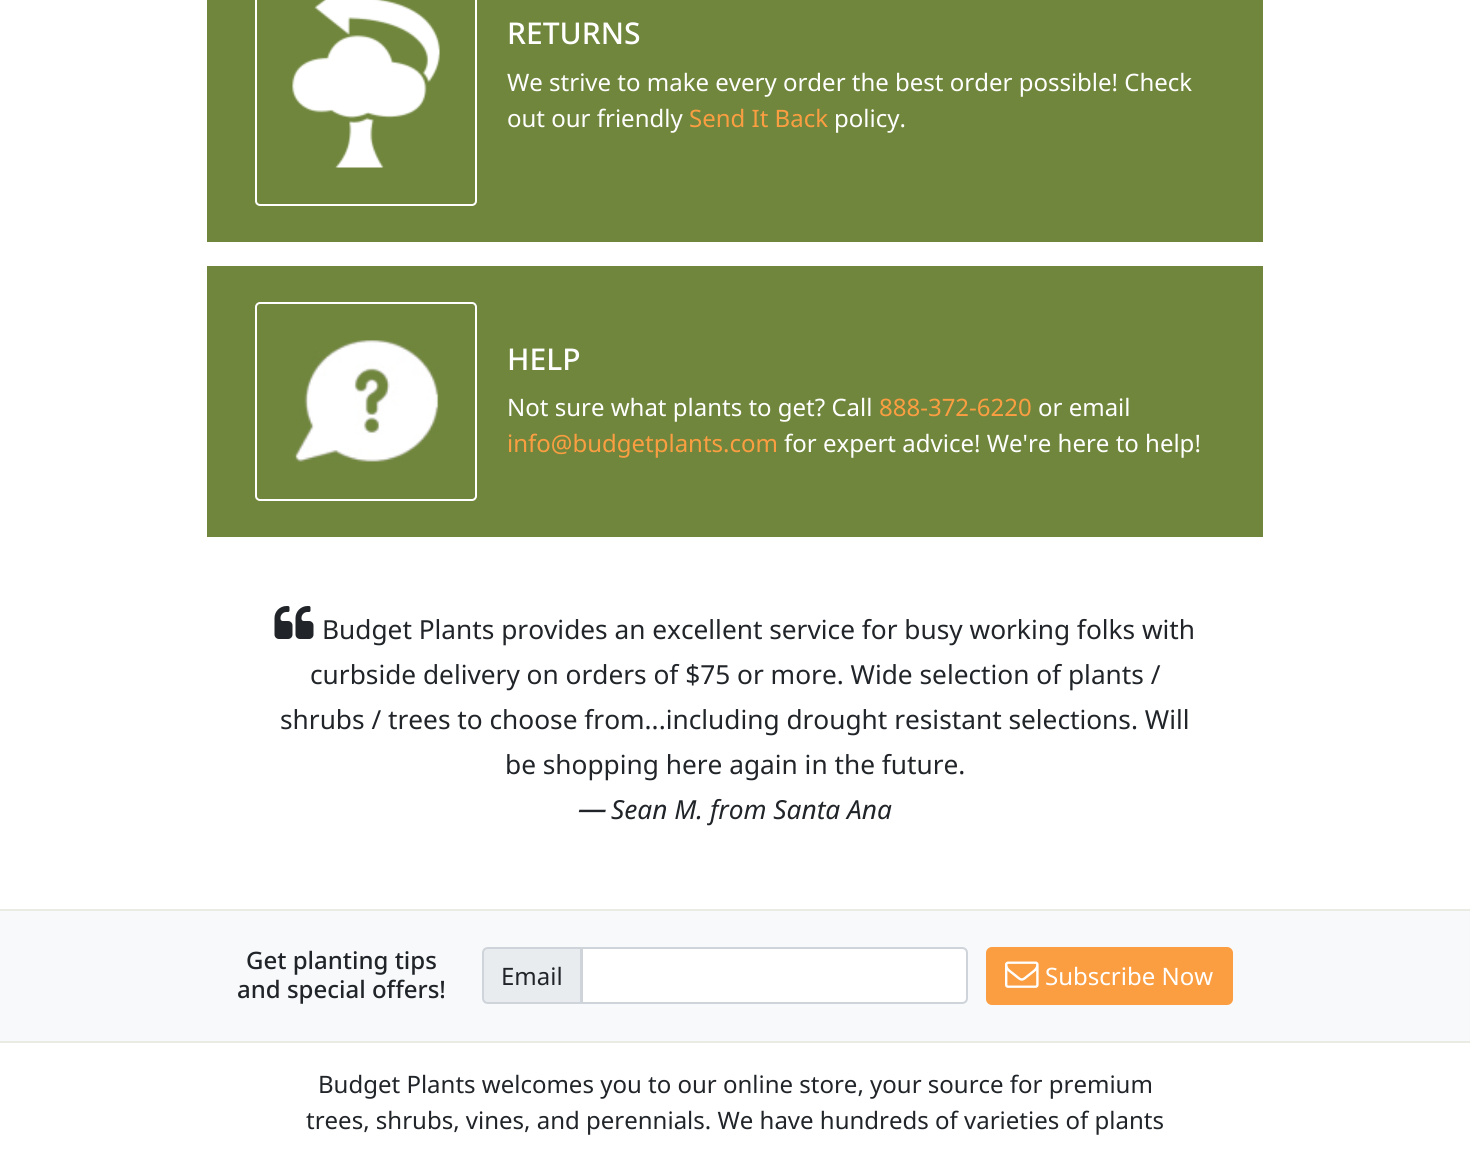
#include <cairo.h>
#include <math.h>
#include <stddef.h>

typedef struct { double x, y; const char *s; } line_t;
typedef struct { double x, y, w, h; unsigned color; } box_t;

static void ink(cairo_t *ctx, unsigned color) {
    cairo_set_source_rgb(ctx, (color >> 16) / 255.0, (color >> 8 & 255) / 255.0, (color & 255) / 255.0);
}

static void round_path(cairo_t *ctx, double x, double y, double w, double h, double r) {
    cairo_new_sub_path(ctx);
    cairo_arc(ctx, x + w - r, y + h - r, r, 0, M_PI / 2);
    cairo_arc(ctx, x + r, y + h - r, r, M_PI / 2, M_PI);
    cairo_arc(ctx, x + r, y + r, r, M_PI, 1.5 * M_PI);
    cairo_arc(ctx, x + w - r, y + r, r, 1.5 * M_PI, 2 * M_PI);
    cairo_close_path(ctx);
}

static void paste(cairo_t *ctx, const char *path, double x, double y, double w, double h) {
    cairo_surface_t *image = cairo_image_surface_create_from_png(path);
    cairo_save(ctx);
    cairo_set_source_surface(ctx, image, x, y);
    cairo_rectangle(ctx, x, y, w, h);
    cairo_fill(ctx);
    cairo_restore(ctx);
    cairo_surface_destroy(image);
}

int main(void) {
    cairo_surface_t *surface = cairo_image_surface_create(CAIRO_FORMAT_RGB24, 1470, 1151);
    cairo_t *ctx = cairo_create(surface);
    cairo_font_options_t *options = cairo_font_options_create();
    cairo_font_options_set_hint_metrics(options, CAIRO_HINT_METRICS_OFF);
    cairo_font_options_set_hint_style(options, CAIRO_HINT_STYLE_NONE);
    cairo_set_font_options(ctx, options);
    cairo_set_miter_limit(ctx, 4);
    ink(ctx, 0xFFFFFF);
    cairo_paint(ctx);
    ink(ctx, 0x70863D);
    cairo_rectangle(ctx, 207, 0, 1056, 242);
    cairo_fill(ctx);
    round_path(ctx, 256, -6, 220, 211, 4);
    ink(ctx, 0xFFFFFF);
    cairo_stroke(ctx);
    paste(ctx, "media/1.png", 292, 0, 148, 168);
    cairo_select_font_face(ctx, "Noto Sans Medium", CAIRO_FONT_SLANT_NORMAL, CAIRO_FONT_WEIGHT_NORMAL);
    cairo_set_font_size(ctx, 30);
    cairo_move_to(ctx, 507, 44);
    cairo_show_text(ctx, "RETURNS");
    cairo_select_font_face(ctx, "Noto Sans", CAIRO_FONT_SLANT_NORMAL, CAIRO_FONT_WEIGHT_NORMAL);
    cairo_set_font_size(ctx, 24);
    cairo_move_to(ctx, 507, 91);
    cairo_show_text(ctx, "We strive to make every order the best order possible! Check");
    cairo_move_to(ctx, 507, 127);
    cairo_show_text(ctx, "out our friendly");
    ink(ctx, 0xFB9E41);
    cairo_move_to(ctx, 689, 127);
    cairo_show_text(ctx, "Send It Back");
    ink(ctx, 0xFFFFFF);
    cairo_move_to(ctx, 834, 127);
    cairo_show_text(ctx, "policy.");
    ink(ctx, 0x70863D);
    cairo_rectangle(ctx, 207, 266, 1056, 271);
    cairo_fill(ctx);
    round_path(ctx, 256, 303, 220, 197, 4);
    ink(ctx, 0xFFFFFF);
    cairo_stroke(ctx);
    paste(ctx, "media/2.png", 293, 340, 146, 122);
    cairo_select_font_face(ctx, "Noto Sans Medium", CAIRO_FONT_SLANT_NORMAL, CAIRO_FONT_WEIGHT_NORMAL);
    cairo_set_font_size(ctx, 30);
    cairo_move_to(ctx, 507, 370);
    cairo_show_text(ctx, "HELP");
    cairo_select_font_face(ctx, "Noto Sans", CAIRO_FONT_SLANT_NORMAL, CAIRO_FONT_WEIGHT_NORMAL);
    cairo_set_font_size(ctx, 24);
    cairo_move_to(ctx, 507, 416);
    cairo_show_text(ctx, "Not sure what plants to get? Call");
    ink(ctx, 0xFB9E41);
    cairo_move_to(ctx, 879, 416);
    cairo_show_text(ctx, "888-372-6220");
    ink(ctx, 0xFFFFFF);
    cairo_move_to(ctx, 1038, 416);
    cairo_show_text(ctx, "or email");
    ink(ctx, 0xFB9E41);
    cairo_move_to(ctx, 507, 452);
    cairo_show_text(ctx, "info@budgetplants.com");
    ink(ctx, 0xFFFFFF);
    cairo_move_to(ctx, 784, 452);
    cairo_show_text(ctx, "for expert advice! We're here to help!");
    paste(ctx, "media/3.png", 274, 606, 40, 33);
    cairo_set_font_size(ctx, 26.25);
    ink(ctx, 0x212529);
    {
        static const line_t items[] = {
            {322, 639, "Budget Plants provides an excellent service for busy working folks with"},
            {310, 684, "curbside delivery on orders of $75 or more. Wide selection of plants /"},
            {280, 729, "shrubs / trees to choose from...including drought resistant selections. Will"},
            {505, 774, "be shopping here again in the future."},
        };
        for (size_t i = 0; i < sizeof items / sizeof *items; i++) {
            cairo_move_to(ctx, items[i].x, items[i].y);
            cairo_show_text(ctx, items[i].s);
        }
    }
    cairo_select_font_face(ctx, "Noto Sans", CAIRO_FONT_SLANT_ITALIC, CAIRO_FONT_WEIGHT_NORMAL);
    cairo_set_font_size(ctx, 30);
    cairo_move_to(ctx, 578, 819);
    cairo_show_text(ctx, "—");
    cairo_set_font_size(ctx, 26.25);
    cairo_move_to(ctx, 611, 819);
    cairo_show_text(ctx, "Sean M. from Santa Ana");
    {
        static const box_t items[] = {
            {0, 911, 1470, 130, 0xF8F9FA},
            {0, 909, 1470, 2, 0xEAECE4},
            {0, 1041, 1470, 2, 0xEAECE4},
        };
        for (size_t i = 0; i < sizeof items / sizeof *items; i++) {
            ink(ctx, items[i].color);
            cairo_rectangle(ctx, items[i].x, items[i].y, items[i].w, items[i].h);
            cairo_fill(ctx);
        }
    }
    cairo_select_font_face(ctx, "Noto Sans Medium", CAIRO_FONT_SLANT_NORMAL, CAIRO_FONT_WEIGHT_NORMAL);
    cairo_set_font_size(ctx, 24);
    ink(ctx, 0x212529);
    cairo_move_to(ctx, 246, 969);
    cairo_show_text(ctx, "Get planting tips");
    cairo_move_to(ctx, 237, 998);
    cairo_show_text(ctx, "and special offers!");
    ink(ctx, 0xE9ECEF);
    cairo_new_path(ctx);
    cairo_move_to(ctx, 488, 948);
    cairo_line_to(ctx, 581, 948);
    cairo_line_to(ctx, 581, 1003);
    cairo_line_to(ctx, 488, 1003);
    cairo_curve_to(ctx, 485, 1003, 483, 1001, 483, 998);
    cairo_line_to(ctx, 483, 953);
    cairo_curve_to(ctx, 483, 950, 485, 948, 488, 948);
    cairo_close_path(ctx);
    cairo_fill_preserve(ctx);
    ink(ctx, 0xCED4DA);
    cairo_stroke(ctx);
    cairo_select_font_face(ctx, "Noto Sans", CAIRO_FONT_SLANT_NORMAL, CAIRO_FONT_WEIGHT_NORMAL);
    ink(ctx, 0x212529);
    cairo_move_to(ctx, 501, 985);
    cairo_show_text(ctx, "Email");
    ink(ctx, 0xFFFFFF);
    cairo_new_path(ctx);
    cairo_move_to(ctx, 582, 948);
    cairo_line_to(ctx, 962, 948);
    cairo_curve_to(ctx, 965, 948, 967, 950, 967, 953);
    cairo_line_to(ctx, 967, 998);
    cairo_curve_to(ctx, 967, 1001, 965, 1003, 962, 1003);
    cairo_line_to(ctx, 582, 1003);
    cairo_close_path(ctx);
    cairo_fill_preserve(ctx);
    ink(ctx, 0xCED4DA);
    cairo_stroke(ctx);
    ink(ctx, 0xFB9E41);
    round_path(ctx, 987, 948, 245, 56, 5);
    cairo_fill_preserve(ctx);
    cairo_stroke(ctx);
    paste(ctx, "media/4.png", 1005, 961, 34, 27);
    ink(ctx, 0xFFFFFF);
    cairo_move_to(ctx, 1045, 985);
    cairo_show_text(ctx, "Subscribe Now");
    ink(ctx, 0x212529);
    cairo_move_to(ctx, 318, 1093);
    cairo_show_text(ctx, "Budget Plants welcomes you to our online store, your source for premium");
    cairo_move_to(ctx, 306, 1129);
    cairo_show_text(ctx, "trees, shrubs, vines, and perennials. We have hundreds of varieties of plants");
    cairo_surface_write_to_png(surface, "image.png");
    cairo_font_options_destroy(options);
    cairo_destroy(ctx);
    cairo_surface_destroy(surface);
    return 0;
}
